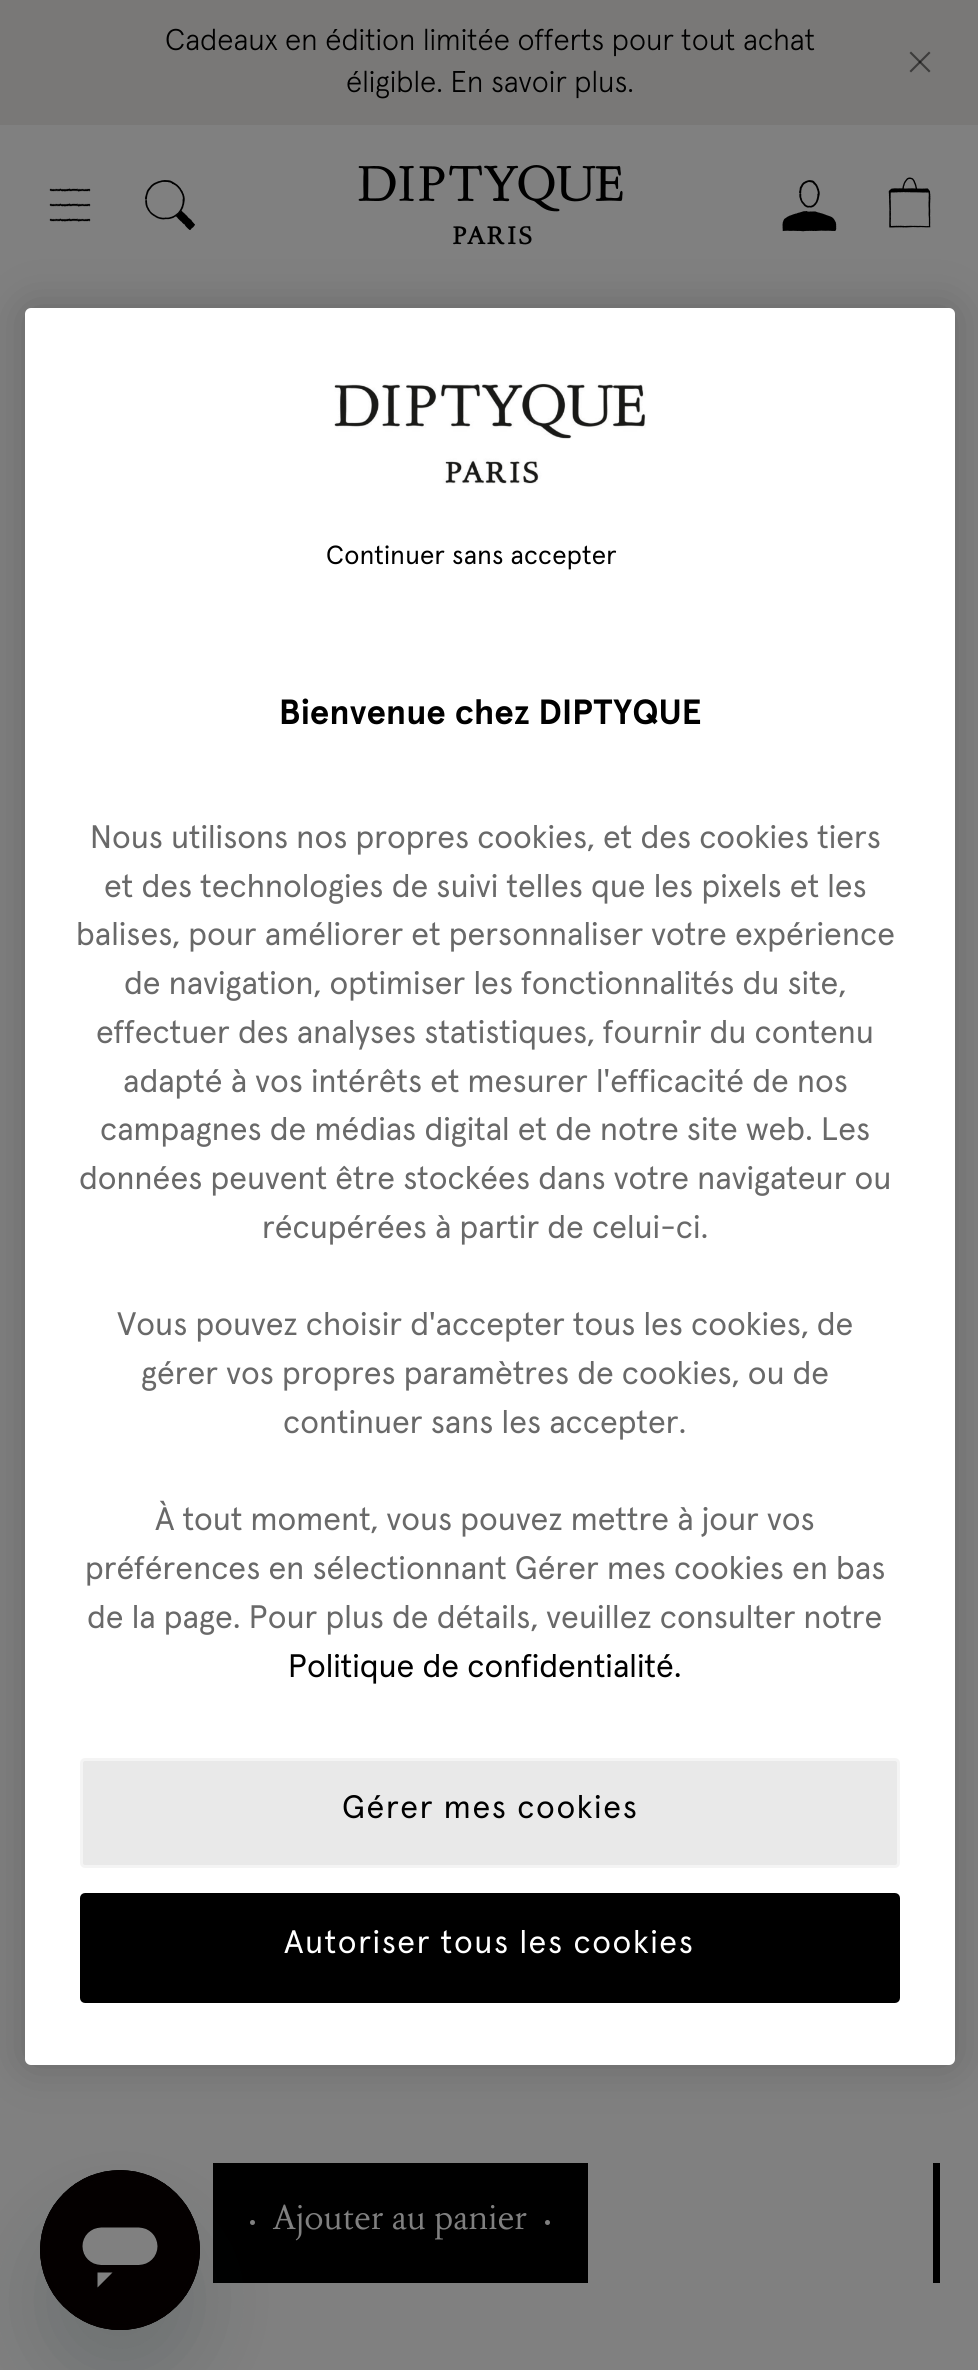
#include <cairo.h>
#include <math.h>
#include <stddef.h>

typedef struct { double x, y; const char *s; } line_t;

static void ink(cairo_t *ctx, unsigned color) {
    cairo_set_source_rgb(ctx, (color >> 16) / 255.0, (color >> 8 & 255) / 255.0, (color & 255) / 255.0);
}

static void write_spaced(cairo_t *ctx, double x, double y, const char *s, double letter, double word) {
    cairo_move_to(ctx, x, y);
    while (*s) {
        char ch[5] = {0};
        int n = 0;
        do ch[n++] = *s++; while ((*s & 0xC0) == 0x80);
        cairo_show_text(ctx, ch);
        cairo_rel_move_to(ctx, letter + word * (*ch == ' '), 0);
    }
}

static void round_path(cairo_t *ctx, double x, double y, double w, double h, double r) {
    cairo_new_sub_path(ctx);
    cairo_arc(ctx, x + w - r, y + h - r, r, 0, M_PI / 2);
    cairo_arc(ctx, x + r, y + h - r, r, M_PI / 2, M_PI);
    cairo_arc(ctx, x + r, y + r, r, M_PI, 1.5 * M_PI);
    cairo_arc(ctx, x + w - r, y + r, r, 1.5 * M_PI, 2 * M_PI);
    cairo_close_path(ctx);
}

static void blur_box(cairo_t *ctx, double x, double y, double w, double h, double r, double blur, double alpha) {
    cairo_push_group_with_content(ctx, CAIRO_CONTENT_ALPHA);
    cairo_set_operator(ctx, CAIRO_OPERATOR_SOURCE);
    for (int i = 15; i >= -15 && fmin(w, h) + blur * i / 3 > 0; i -= 2) {
        double e = blur * i / 6;
        cairo_set_source_rgba(ctx, 0, 0, 0, alpha * erfc((i - 1) / 8.5) / 2);
        round_path(ctx, x - e, y - e, w + 2 * e, h + 2 * e, fmax(0, fmin(r + e + blur * .6, fmin(w, h) / 2 + e)));
        cairo_fill(ctx);
    }
    cairo_pattern_t *soft = cairo_pop_group(ctx);
    cairo_mask(ctx, soft);
    cairo_pattern_destroy(soft);
}

static void paste(cairo_t *ctx, const char *path, double x, double y, double w, double h) {
    cairo_surface_t *image = cairo_image_surface_create_from_png(path);
    cairo_save(ctx);
    cairo_set_source_surface(ctx, image, x, y);
    cairo_rectangle(ctx, x, y, w, h);
    cairo_fill(ctx);
    cairo_restore(ctx);
    cairo_surface_destroy(image);
}

int main(void) {
    cairo_surface_t *surface = cairo_image_surface_create(CAIRO_FORMAT_RGB24, 978, 2370);
    cairo_t *ctx = cairo_create(surface);
    cairo_font_options_t *options = cairo_font_options_create();
    cairo_font_options_set_hint_metrics(options, CAIRO_HINT_METRICS_OFF);
    cairo_font_options_set_hint_style(options, CAIRO_HINT_STYLE_NONE);
    cairo_set_font_options(ctx, options);
    cairo_set_miter_limit(ctx, 4);
    ink(ctx, 0x808080);
    cairo_paint(ctx);
    ink(ctx, 0x797877);
    cairo_rectangle(ctx, 0, 0, 978, 125);
    cairo_fill(ctx);
    cairo_select_font_face(ctx, "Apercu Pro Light", CAIRO_FONT_SLANT_NORMAL, CAIRO_FONT_WEIGHT_NORMAL);
    cairo_set_font_size(ctx, 30);
    ink(ctx, 0x000000);
    cairo_move_to(ctx, 165, 50);
    cairo_show_text(ctx, "Cadeaux en édition limitée offerts pour tout achat");
    cairo_move_to(ctx, 346, 92);
    cairo_show_text(ctx, "éligible. En savoir plus.");
    ink(ctx, 0x3D3C3C);
    cairo_new_path(ctx);
    cairo_move_to(ctx, 929, 51.5);
    cairo_line_to(ctx, 930.5, 53);
    cairo_line_to(ctx, 911, 72.5);
    cairo_line_to(ctx, 909.5, 71);
    cairo_close_path(ctx);
    cairo_fill(ctx);
    cairo_set_source_rgba(ctx, 0, 0, 0, 0.5);
    cairo_new_path(ctx);
    cairo_move_to(ctx, 909.5, 53);
    cairo_line_to(ctx, 911, 51.5);
    cairo_line_to(ctx, 930.5, 71);
    cairo_line_to(ctx, 929, 72.5);
    cairo_close_path(ctx);
    cairo_fill(ctx);
    paste(ctx, "media/1.png", 49, 188, 42, 34);
    paste(ctx, "media/2.png", 145, 180, 50, 50);
    paste(ctx, "media/3.png", 358, 165, 265, 80);
    paste(ctx, "media/4.png", 782, 180, 55, 52);
    paste(ctx, "media/5.png", 888, 177, 43, 51);
    ink(ctx, 0x000000);
    cairo_rectangle(ctx, 213, 2163, 375, 120);
    cairo_fill(ctx);
    ink(ctx, 0x808080);
    cairo_arc(ctx, 252.5, 2222.5, 2.5, 0, 2 * M_PI);
    cairo_fill(ctx);
    cairo_select_font_face(ctx, "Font", CAIRO_FONT_SLANT_NORMAL, CAIRO_FONT_WEIGHT_NORMAL);
    cairo_set_font_size(ctx, 35);
    cairo_move_to(ctx, 273, 2229);
    cairo_show_text(ctx, "Ajouter au panier");
    cairo_new_path(ctx);
    cairo_arc(ctx, 547.5, 2222.5, 2.5, 0, 2 * M_PI);
    cairo_fill(ctx);
    ink(ctx, 0x000000);
    cairo_rectangle(ctx, 933, 2163, 7, 120);
    cairo_fill(ctx);
    ink(ctx, 0x000000);
    blur_box(ctx, 25, 308, 930, 1757, 6, 22.5, 0.2);
    ink(ctx, 0xFFFFFF);
    round_path(ctx, 25, 308, 930, 1757, 6);
    cairo_fill(ctx);
    cairo_select_font_face(ctx, "Apercu Pro", CAIRO_FONT_SLANT_NORMAL, CAIRO_FONT_WEIGHT_NORMAL);
    cairo_set_font_size(ctx, 26.25);
    ink(ctx, 0x000000);
    write_spaced(ctx, 326, 564, "Continuer sans accepter", 0.25, 0);
    paste(ctx, "media/6.png", 334, 383, 312, 101);
    cairo_select_font_face(ctx, "Apercu Pro", CAIRO_FONT_SLANT_NORMAL, CAIRO_FONT_WEIGHT_BOLD);
    cairo_set_font_size(ctx, 35);
    cairo_move_to(ctx, 279, 724);
    cairo_show_text(ctx, "Bienvenue chez DIPTYQUE");
    cairo_select_font_face(ctx, "Apercu Pro", CAIRO_FONT_SLANT_NORMAL, CAIRO_FONT_WEIGHT_NORMAL);
    cairo_set_font_size(ctx, 32.5);
    ink(ctx, 0x696969);
    {
        static const line_t items[] = {
            {90, 848, "Nous utilisons nos propres cookies, et des cookies tiers"},
            {104, 897, "et des technologies de suivi telles que les pixels et les"},
            {76, 945, "balises, pour améliorer et personnaliser votre expérience"},
            {124, 994, "de navigation, optimiser les fonctionnalités du site,"},
            {96, 1043, "effectuer des analyses statistiques, fournir du contenu"},
            {123, 1092, "adapté à vos intérêts et mesurer l'efficacité de nos"},
            {100, 1140, "campagnes de médias digital et de notre site web. Les"},
            {79, 1189, "données peuvent être stockées dans votre navigateur ou"},
            {262, 1238, "récupérées à partir de celui-ci."},
            {117, 1335, "Vous pouvez choisir d'accepter tous les cookies, de"},
            {141, 1384, "gérer vos propres paramètres de cookies, ou de"},
            {283, 1433, "continuer sans les accepter."},
            {155, 1530, "À tout moment, vous pouvez mettre à jour vos"},
            {85, 1579, "préférences en sélectionnant Gérer mes cookies en bas"},
            {87, 1628, "de la page. Pour plus de détails, veuillez consulter notre"},
        };
        for (size_t i = 0; i < sizeof items / sizeof *items; i++) {
            cairo_move_to(ctx, items[i].x, items[i].y);
            cairo_show_text(ctx, items[i].s);
        }
    }
    ink(ctx, 0x000000);
    cairo_move_to(ctx, 288, 1677);
    cairo_show_text(ctx, "Politique de confidentialité.");
    ink(ctx, 0xE9E9E9);
    round_path(ctx, 81.5, 1759.5, 817, 107, 3.5);
    cairo_fill_preserve(ctx);
    ink(ctx, 0xF4F4F4);
    cairo_set_line_width(ctx, 3);
    cairo_stroke(ctx);
    ink(ctx, 0x000000);
    write_spaced(ctx, 342, 1818, "Gérer mes cookies", 1.6, 0);
    round_path(ctx, 81.5, 1894.5, 817, 107, 3.5);
    cairo_fill_preserve(ctx);
    cairo_stroke(ctx);
    ink(ctx, 0xFFFFFF);
    write_spaced(ctx, 284, 1953, "Autoriser tous les cookies", 1.6, 0);
    ink(ctx, 0x0C2527);
    blur_box(ctx, 40, 2220, 160, 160, 80, 37.5, 0.15);
    paste(ctx, "media/7.png", 40, 2170, 160, 160);
    cairo_surface_write_to_png(surface, "image.png");
    cairo_font_options_destroy(options);
    cairo_destroy(ctx);
    cairo_surface_destroy(surface);
    return 0;
}
